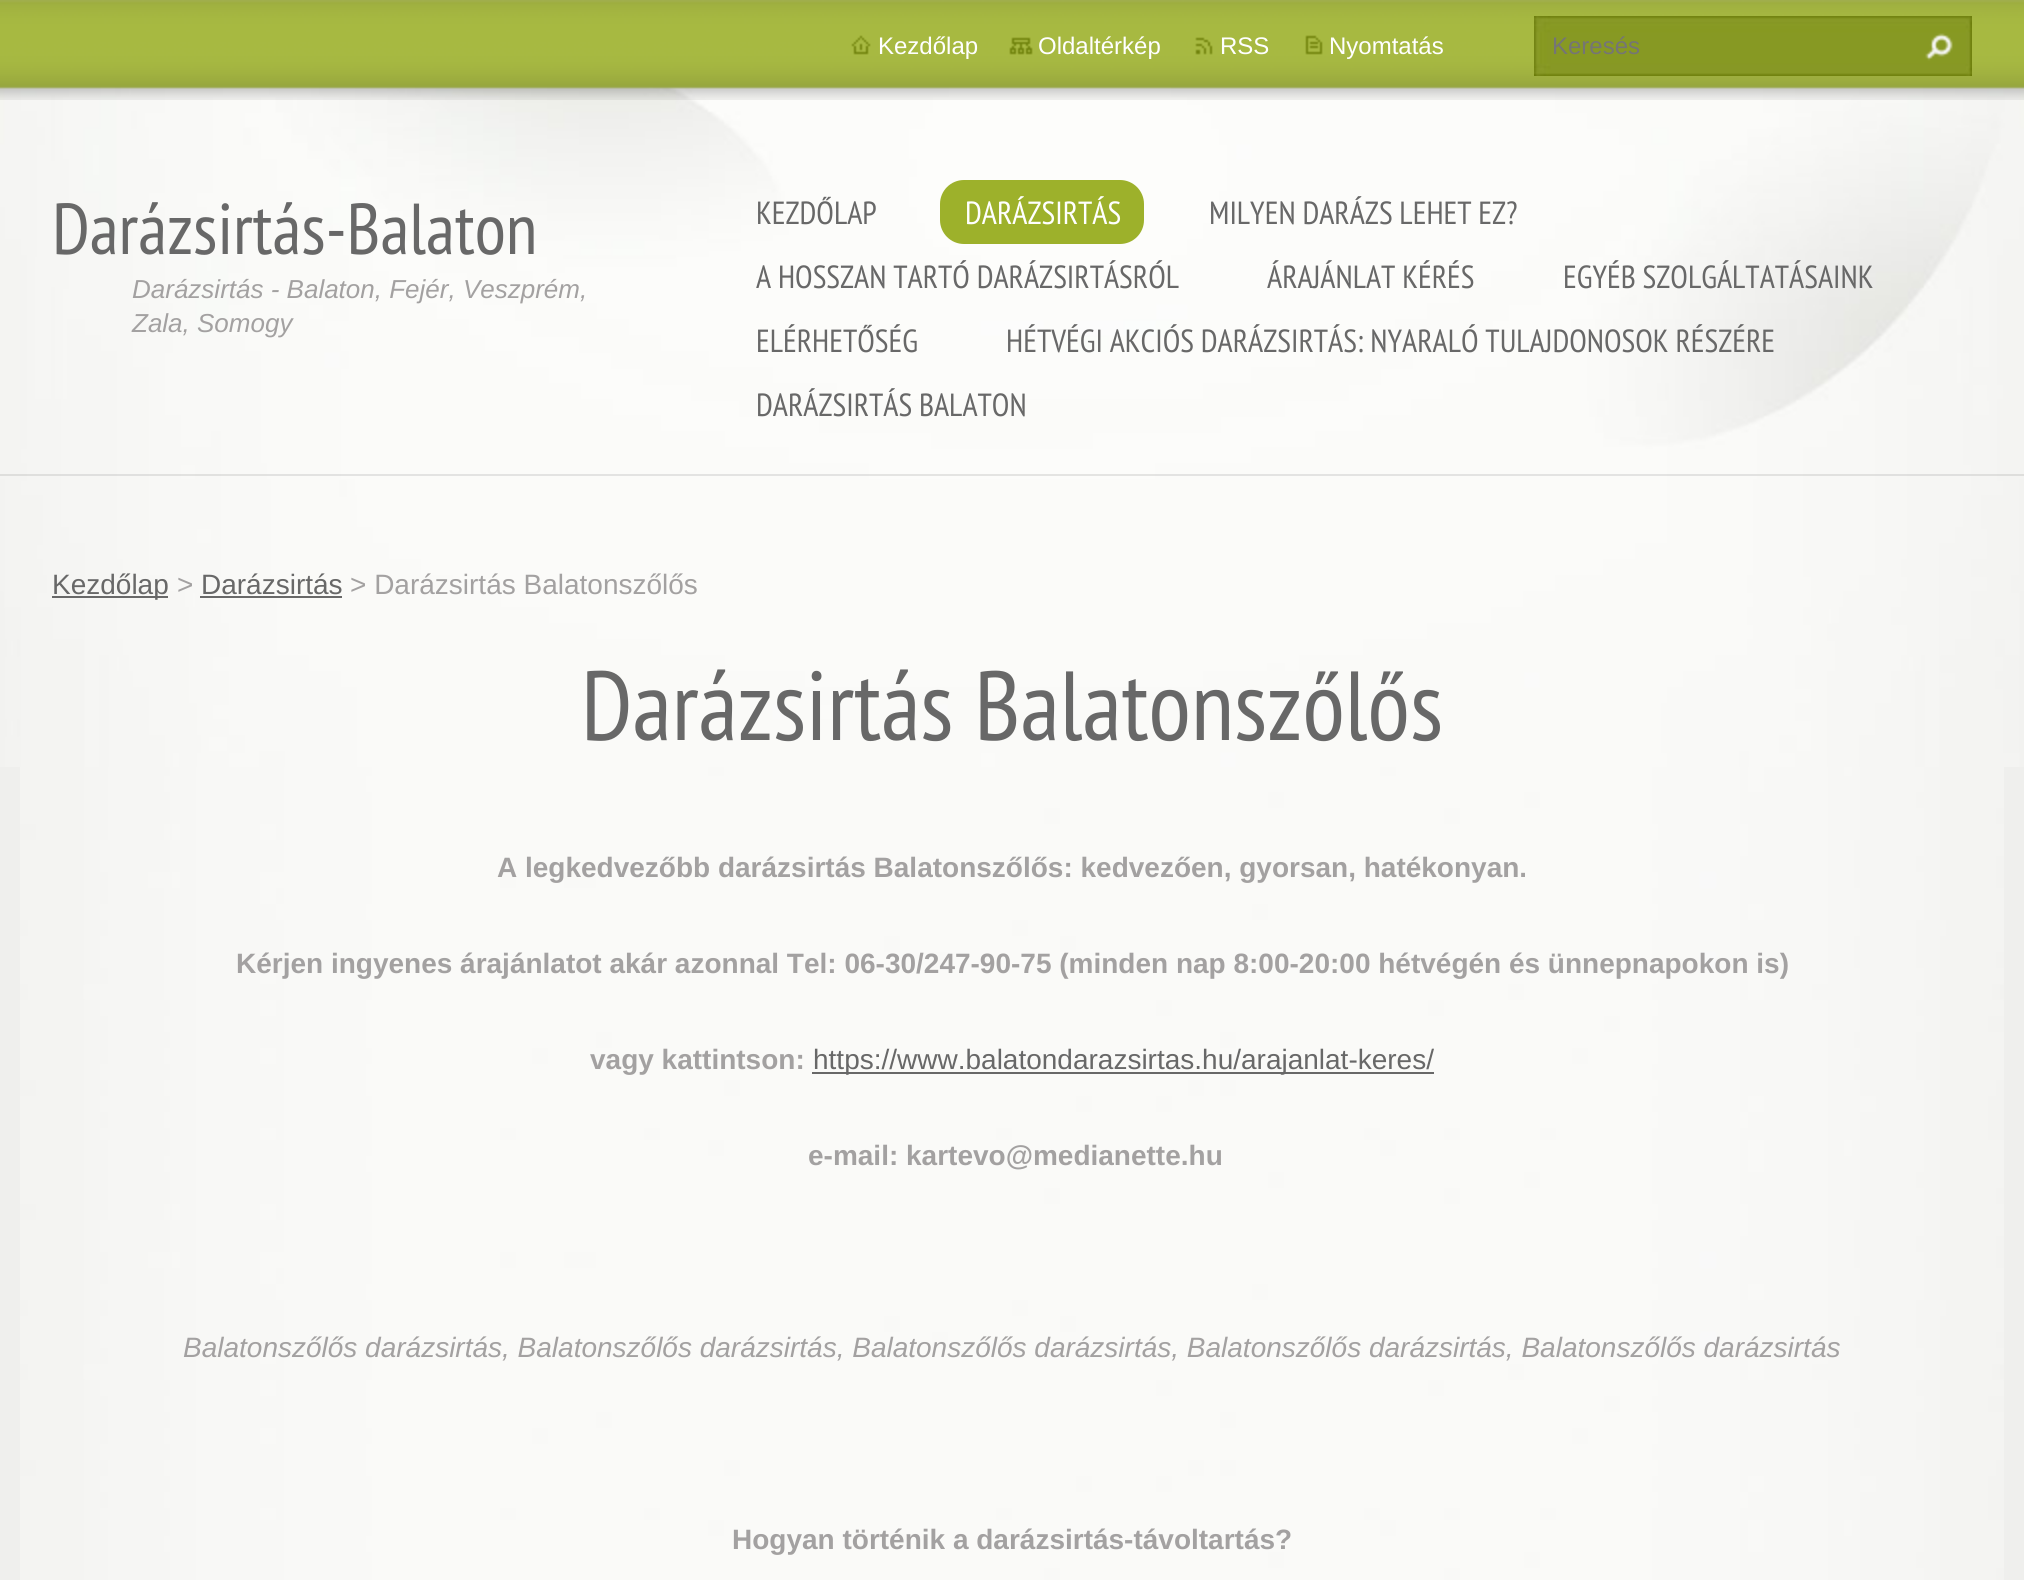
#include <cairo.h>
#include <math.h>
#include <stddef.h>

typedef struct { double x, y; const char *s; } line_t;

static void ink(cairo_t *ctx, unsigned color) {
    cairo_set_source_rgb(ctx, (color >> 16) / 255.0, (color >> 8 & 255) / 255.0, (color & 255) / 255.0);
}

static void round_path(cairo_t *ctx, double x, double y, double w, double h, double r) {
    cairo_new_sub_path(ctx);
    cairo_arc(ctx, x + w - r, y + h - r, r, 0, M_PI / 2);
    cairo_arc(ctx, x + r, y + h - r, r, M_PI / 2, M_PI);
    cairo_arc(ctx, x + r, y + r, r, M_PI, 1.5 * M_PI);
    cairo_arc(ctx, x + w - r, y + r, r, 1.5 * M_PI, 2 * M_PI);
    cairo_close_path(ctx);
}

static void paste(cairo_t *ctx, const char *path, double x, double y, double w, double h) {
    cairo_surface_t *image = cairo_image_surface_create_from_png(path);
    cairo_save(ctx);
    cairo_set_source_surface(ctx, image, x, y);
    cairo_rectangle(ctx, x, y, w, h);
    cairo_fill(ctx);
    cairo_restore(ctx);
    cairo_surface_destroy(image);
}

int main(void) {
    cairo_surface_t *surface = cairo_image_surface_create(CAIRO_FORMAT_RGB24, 2024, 1580);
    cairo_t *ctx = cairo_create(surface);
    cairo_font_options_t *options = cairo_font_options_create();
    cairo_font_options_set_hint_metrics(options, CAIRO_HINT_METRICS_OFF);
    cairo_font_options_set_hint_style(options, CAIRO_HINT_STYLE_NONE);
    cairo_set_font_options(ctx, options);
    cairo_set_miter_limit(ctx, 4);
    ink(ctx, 0xEFEFED);
    cairo_paint(ctx);
    paste(ctx, "media/1.png", 20, 767, 1984, 813);
    paste(ctx, "media/2.png", 0, 87, 2024, 680);
    cairo_set_source_rgba(ctx, 0.62, 0.62, 0.62, 0.26);
    cairo_rectangle(ctx, 0, 474, 2024, 2);
    cairo_fill(ctx);
    paste(ctx, "media/3.png", 0, 0, 2024, 100);
    paste(ctx, "media/4.png", 851, 35, 20, 20);
    cairo_select_font_face(ctx, "Liberation Sans", CAIRO_FONT_SLANT_NORMAL, CAIRO_FONT_WEIGHT_NORMAL);
    cairo_set_font_size(ctx, 24);
    ink(ctx, 0xFFFFFF);
    cairo_move_to(ctx, 878, 54);
    cairo_show_text(ctx, "Kezdőlap");
    paste(ctx, "media/5.png", 1009, 37, 24, 18);
    cairo_move_to(ctx, 1038, 54);
    cairo_show_text(ctx, "Oldaltérkép");
    paste(ctx, "media/6.png", 1195, 37, 18, 18);
    cairo_move_to(ctx, 1220, 54);
    cairo_show_text(ctx, "RSS");
    paste(ctx, "media/7.png", 1305, 35, 18, 20);
    cairo_move_to(ctx, 1329, 54);
    cairo_show_text(ctx, "Nyomtatás");
    paste(ctx, "media/8.png", 1534, 16, 438, 60);
    ink(ctx, 0x757575);
    cairo_move_to(ctx, 1552, 54);
    cairo_show_text(ctx, "Keresés");
    paste(ctx, "media/9.png", 1925, 33, 28, 28);
    cairo_select_font_face(ctx, "PT Sans Narrow", CAIRO_FONT_SLANT_NORMAL, CAIRO_FONT_WEIGHT_NORMAL);
    cairo_set_font_size(ctx, 72);
    ink(ctx, 0x686868);
    cairo_move_to(ctx, 52, 254);
    cairo_show_text(ctx, "Darázsirtás-Balaton");
    cairo_select_font_face(ctx, "Liberation Sans", CAIRO_FONT_SLANT_ITALIC, CAIRO_FONT_WEIGHT_NORMAL);
    cairo_set_font_size(ctx, 26);
    ink(ctx, 0xA3A1A1);
    cairo_move_to(ctx, 132, 298);
    cairo_show_text(ctx, "Darázsirtás - Balaton, Fejér, Veszprém,");
    cairo_move_to(ctx, 132, 332);
    cairo_show_text(ctx, "Zala, Somogy");
    cairo_select_font_face(ctx, "PT Sans Narrow", CAIRO_FONT_SLANT_NORMAL, CAIRO_FONT_WEIGHT_NORMAL);
    cairo_set_font_size(ctx, 32);
    ink(ctx, 0x686868);
    cairo_move_to(ctx, 756, 224);
    cairo_show_text(ctx, "KEZDŐLAP");
    ink(ctx, 0x9DB12B);
    round_path(ctx, 940, 180, 204, 64, 24);
    cairo_fill(ctx);
    ink(ctx, 0xFFFFFF);
    cairo_move_to(ctx, 965, 224);
    cairo_show_text(ctx, "DARÁZSIRTÁS");
    ink(ctx, 0x686868);
    {
        static const line_t items[] = {
            {1209, 224, "MILYEN DARÁZS LEHET EZ?"},
            {756, 288, "A HOSSZAN TARTÓ DARÁZSIRTÁSRÓL"},
            {1267, 288, "ÁRAJÁNLAT KÉRÉS"},
            {1563, 288, "EGYÉB SZOLGÁLTATÁSAINK"},
            {756, 352, "ELÉRHETŐSÉG"},
            {1006, 352, "HÉTVÉGI AKCIÓS DARÁZSIRTÁS: NYARALÓ TULAJDONOSOK RÉSZÉRE"},
            {756, 416, "DARÁZSIRTÁS BALATON"},
        };
        for (size_t i = 0; i < sizeof items / sizeof *items; i++) {
            cairo_move_to(ctx, items[i].x, items[i].y);
            cairo_show_text(ctx, items[i].s);
        }
    }
    cairo_rectangle(ctx, 52, 596, 116, 2);
    cairo_fill(ctx);
    cairo_select_font_face(ctx, "Liberation Sans", CAIRO_FONT_SLANT_NORMAL, CAIRO_FONT_WEIGHT_NORMAL);
    cairo_set_font_size(ctx, 28);
    cairo_move_to(ctx, 52, 594);
    cairo_show_text(ctx, "Kezdőlap");
    ink(ctx, 0xA3A1A1);
    cairo_move_to(ctx, 177, 594);
    cairo_show_text(ctx, ">");
    ink(ctx, 0x686868);
    cairo_move_to(ctx, 201, 594);
    cairo_show_text(ctx, "Darázsirtás");
    cairo_rectangle(ctx, 200, 596, 142, 2);
    cairo_fill(ctx);
    ink(ctx, 0xA3A1A1);
    cairo_move_to(ctx, 350, 594);
    cairo_show_text(ctx, "> Darázsirtás Balatonszőlős");
    cairo_select_font_face(ctx, "PT Sans Narrow", CAIRO_FONT_SLANT_NORMAL, CAIRO_FONT_WEIGHT_NORMAL);
    cairo_set_font_size(ctx, 98);
    ink(ctx, 0x686868);
    cairo_move_to(ctx, 581, 740);
    cairo_show_text(ctx, "Darázsirtás Balatonszőlős");
    cairo_select_font_face(ctx, "Liberation Sans", CAIRO_FONT_SLANT_NORMAL, CAIRO_FONT_WEIGHT_BOLD);
    cairo_set_font_size(ctx, 28);
    ink(ctx, 0xA3A1A1);
    {
        static const line_t items[] = {
            {497, 877, "A legkedvezőbb darázsirtás Balatonszőlős: kedvezően, gyorsan, hatékonyan."},
            {236, 973, "Kérjen ingyenes árajánlatot akár azonnal Tel: 06-30/247-90-75 (minden nap 8:00-20:00 hétvégén és ünnepnapokon is)"},
            {590, 1069, "vagy kattintson:"},
        };
        for (size_t i = 0; i < sizeof items / sizeof *items; i++) {
            cairo_move_to(ctx, items[i].x, items[i].y);
            cairo_show_text(ctx, items[i].s);
        }
    }
    ink(ctx, 0x686868);
    cairo_rectangle(ctx, 812, 1072, 622, 2);
    cairo_fill(ctx);
    cairo_select_font_face(ctx, "Liberation Sans", CAIRO_FONT_SLANT_NORMAL, CAIRO_FONT_WEIGHT_NORMAL);
    cairo_move_to(ctx, 813, 1069);
    cairo_show_text(ctx, "https://www.balatondarazsirtas.hu/arajanlat-keres/");
    cairo_select_font_face(ctx, "Liberation Sans", CAIRO_FONT_SLANT_NORMAL, CAIRO_FONT_WEIGHT_BOLD);
    ink(ctx, 0xA3A1A1);
    cairo_move_to(ctx, 808, 1165);
    cairo_show_text(ctx, "e-mail: kartevo@medianette.hu");
    cairo_select_font_face(ctx, "Liberation Sans", CAIRO_FONT_SLANT_ITALIC, CAIRO_FONT_WEIGHT_NORMAL);
    cairo_move_to(ctx, 183, 1357);
    cairo_show_text(ctx, "Balatonszőlős darázsirtás, Balatonszőlős darázsirtás, Balatonszőlős darázsirtás, Balatonszőlős darázsirtás, Balatonszőlős darázsirtás");
    cairo_select_font_face(ctx, "Liberation Sans", CAIRO_FONT_SLANT_NORMAL, CAIRO_FONT_WEIGHT_BOLD);
    cairo_move_to(ctx, 732, 1549);
    cairo_show_text(ctx, "Hogyan történik a darázsirtás-távoltartás?");
    cairo_surface_write_to_png(surface, "image.png");
    cairo_font_options_destroy(options);
    cairo_destroy(ctx);
    cairo_surface_destroy(surface);
    return 0;
}
